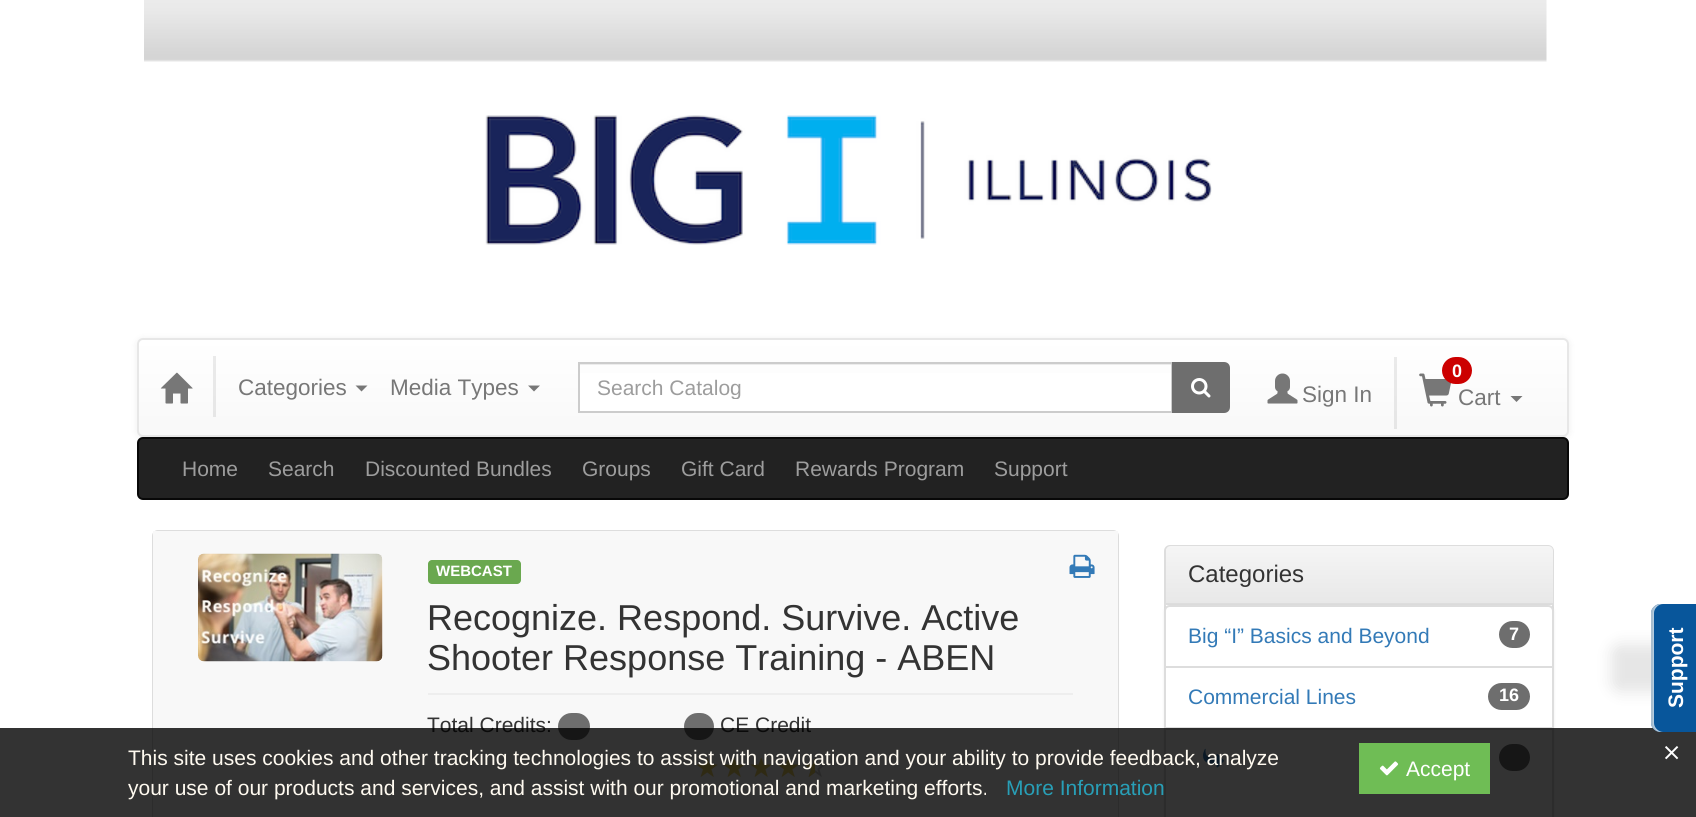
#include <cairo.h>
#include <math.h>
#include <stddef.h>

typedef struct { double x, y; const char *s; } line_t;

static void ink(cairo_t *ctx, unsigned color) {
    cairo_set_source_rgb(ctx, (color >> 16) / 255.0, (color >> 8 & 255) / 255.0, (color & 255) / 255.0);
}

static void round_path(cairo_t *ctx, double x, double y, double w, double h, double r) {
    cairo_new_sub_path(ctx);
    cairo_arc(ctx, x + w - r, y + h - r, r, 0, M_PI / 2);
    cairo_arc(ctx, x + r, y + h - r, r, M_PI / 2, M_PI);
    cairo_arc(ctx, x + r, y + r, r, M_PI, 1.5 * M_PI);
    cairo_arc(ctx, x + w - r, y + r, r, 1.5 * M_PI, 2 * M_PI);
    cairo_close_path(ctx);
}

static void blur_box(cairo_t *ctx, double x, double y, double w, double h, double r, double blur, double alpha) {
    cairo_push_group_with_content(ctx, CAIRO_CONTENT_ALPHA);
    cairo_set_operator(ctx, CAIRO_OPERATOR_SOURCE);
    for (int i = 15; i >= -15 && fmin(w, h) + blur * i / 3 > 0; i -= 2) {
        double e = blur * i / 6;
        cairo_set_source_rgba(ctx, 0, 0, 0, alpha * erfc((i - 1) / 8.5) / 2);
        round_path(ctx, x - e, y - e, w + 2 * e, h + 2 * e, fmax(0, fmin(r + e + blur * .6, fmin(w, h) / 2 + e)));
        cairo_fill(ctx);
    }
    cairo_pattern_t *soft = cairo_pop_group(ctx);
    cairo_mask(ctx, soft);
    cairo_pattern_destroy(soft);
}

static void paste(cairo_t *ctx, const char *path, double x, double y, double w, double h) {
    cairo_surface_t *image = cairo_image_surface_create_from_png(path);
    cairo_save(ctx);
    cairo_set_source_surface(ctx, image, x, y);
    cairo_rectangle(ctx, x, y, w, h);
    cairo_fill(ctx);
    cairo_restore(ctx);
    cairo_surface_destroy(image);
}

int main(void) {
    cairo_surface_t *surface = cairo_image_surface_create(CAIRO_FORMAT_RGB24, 1696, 817);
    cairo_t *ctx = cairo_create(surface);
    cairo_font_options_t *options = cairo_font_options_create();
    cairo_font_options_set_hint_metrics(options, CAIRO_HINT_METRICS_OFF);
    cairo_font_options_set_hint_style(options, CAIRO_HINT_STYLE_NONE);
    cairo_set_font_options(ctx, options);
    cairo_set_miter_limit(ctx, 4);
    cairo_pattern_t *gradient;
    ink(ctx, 0xFFFFFF);
    cairo_paint(ctx);
    paste(ctx, "media/1.png", 144, 0, 1403, 62);
    paste(ctx, "media/2.png", 485, 115, 727, 130);
    ink(ctx, 0x000000);
    blur_box(ctx, 137, 339, 1432, 99, 6, 4, 0.07);
    cairo_save(ctx);
    round_path(ctx, 137, 338, 1432, 99, 6);
    cairo_clip(ctx);
    gradient = cairo_pattern_create_linear(853, 339, 853, 435);
    cairo_pattern_add_color_stop_rgba(gradient, 0, 1, 1, 1, 1);
    cairo_pattern_add_color_stop_rgba(gradient, 1, 0.973, 0.973, 0.973, 1);
    cairo_set_source(ctx, gradient);
    cairo_pattern_destroy(gradient);
    cairo_rectangle(ctx, 137, 339, 1432, 96);
    cairo_fill(ctx);
    cairo_restore(ctx);
    gradient = cairo_pattern_create_linear(853, 339, 853, 435);
    cairo_pattern_add_color_stop_rgba(gradient, 0, 0.922, 0.922, 0.922, 1);
    cairo_pattern_add_color_stop_rgba(gradient, 1, 0.898, 0.898, 0.898, 1);
    cairo_set_source(ctx, gradient);
    cairo_pattern_destroy(gradient);
    cairo_rectangle(ctx, 1394, 357, 3, 72);
    cairo_fill(ctx);
    cairo_rectangle(ctx, 213, 356, 3, 61);
    cairo_fill(ctx);
    round_path(ctx, 138, 339, 1430, 97, 5);
    ink(ctx, 0xE7E7E7);
    cairo_stroke(ctx);
    paste(ctx, "media/3.png", 160, 372, 33, 32);
    cairo_select_font_face(ctx, "Liberation Sans", CAIRO_FONT_SLANT_NORMAL, CAIRO_FONT_WEIGHT_NORMAL);
    cairo_set_font_size(ctx, 22.5);
    ink(ctx, 0x777777);
    cairo_move_to(ctx, 238, 395);
    cairo_show_text(ctx, "Categories");
    cairo_new_path(ctx);
    cairo_move_to(ctx, 355.5, 385.5);
    cairo_line_to(ctx, 367.5, 385.5);
    cairo_line_to(ctx, 361.5, 391.5);
    cairo_close_path(ctx);
    cairo_fill(ctx);
    cairo_move_to(ctx, 390, 395);
    cairo_show_text(ctx, "Media Types");
    cairo_new_path(ctx);
    cairo_move_to(ctx, 528, 385.5);
    cairo_line_to(ctx, 540, 385.5);
    cairo_line_to(ctx, 534, 391.5);
    cairo_close_path(ctx);
    cairo_fill(ctx);
    ink(ctx, 0xFFFFFF);
    cairo_rectangle(ctx, 580, 373, 591, 38);
    cairo_fill(ctx);
    ink(ctx, 0xECECEC);
    cairo_rectangle(ctx, 579, 364, 593, 1);
    cairo_fill(ctx);
    cairo_rectangle(ctx, 579, 363, 593, 49);
    ink(ctx, 0xCCCCCC);
    cairo_stroke(ctx);
    cairo_save(ctx);
    cairo_rectangle(ctx, 597, 375, 557, 24);
    cairo_clip(ctx);
    cairo_set_font_size(ctx, 21);
    ink(ctx, 0x9D9D9D);
    cairo_move_to(ctx, 597, 395);
    cairo_show_text(ctx, "Search Catalog");
    cairo_restore(ctx);
    ink(ctx, 0x6E6E6E);
    cairo_new_path(ctx);
    cairo_move_to(ctx, 1172, 362);
    cairo_line_to(ctx, 1224, 362);
    cairo_curve_to(ctx, 1227.5, 362, 1230, 364.5, 1230, 368);
    cairo_line_to(ctx, 1230, 407);
    cairo_curve_to(ctx, 1230, 410.5, 1227.5, 413, 1224, 413);
    cairo_line_to(ctx, 1172, 413);
    cairo_close_path(ctx);
    cairo_fill(ctx);
    paste(ctx, "media/4.png", 1191, 378, 20, 20);
    paste(ctx, "media/5.png", 1267, 373, 31, 31);
    ink(ctx, 0x777777);
    cairo_move_to(ctx, 1302, 402);
    cairo_show_text(ctx, "Sign In");
    paste(ctx, "media/6.png", 1419, 373, 32, 34);
    ink(ctx, 0xCC0000);
    round_path(ctx, 1442, 357, 30, 27, 13.5);
    cairo_fill(ctx);
    cairo_select_font_face(ctx, "Liberation Sans", CAIRO_FONT_SLANT_NORMAL, CAIRO_FONT_WEIGHT_BOLD);
    cairo_set_font_size(ctx, 18);
    ink(ctx, 0xFFFFFF);
    cairo_move_to(ctx, 1452, 377);
    cairo_show_text(ctx, "0");
    cairo_select_font_face(ctx, "Liberation Sans", CAIRO_FONT_SLANT_NORMAL, CAIRO_FONT_WEIGHT_NORMAL);
    cairo_set_font_size(ctx, 22.5);
    ink(ctx, 0x777777);
    cairo_move_to(ctx, 1458, 405);
    cairo_show_text(ctx, "Cart");
    cairo_new_path(ctx);
    cairo_move_to(ctx, 1510.5, 396);
    cairo_line_to(ctx, 1522.5, 396);
    cairo_line_to(ctx, 1516.5, 402);
    cairo_close_path(ctx);
    cairo_fill(ctx);
    ink(ctx, 0x222222);
    round_path(ctx, 138, 438, 1430, 61, 5);
    cairo_fill_preserve(ctx);
    ink(ctx, 0x080808);
    cairo_stroke(ctx);
    cairo_set_font_size(ctx, 21);
    ink(ctx, 0x9D9D9D);
    {
        static const line_t items[] = {
            {182, 476, "Home"},
            {268, 476, "Search"},
            {365, 476, "Discounted Bundles"},
            {582, 476, "Groups"},
            {681, 476, "Gift Card"},
            {795, 476, "Rewards Program"},
            {994, 476, "Support"},
        };
        for (size_t i = 0; i < sizeof items / sizeof *items; i++) {
            cairo_move_to(ctx, items[i].x, items[i].y);
            cairo_show_text(ctx, items[i].s);
        }
    }
    round_path(ctx, 153, 531, 965, 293, 5);
    ink(ctx, 0xDDDDDD);
    cairo_stroke(ctx);
    ink(ctx, 0xF8F8F8);
    cairo_rectangle(ctx, 153, 531, 965, 286);
    cairo_fill(ctx);
    ink(ctx, 0xFFFFFF);
    round_path(ctx, 198, 554, 185, 108, 6);
    cairo_fill(ctx);
    paste(ctx, "media/7.png", 198, 553, 185, 109);
    ink(ctx, 0x6AA84F);
    round_path(ctx, 428, 560, 93, 24, 4);
    cairo_fill(ctx);
    cairo_select_font_face(ctx, "Liberation Sans", CAIRO_FONT_SLANT_NORMAL, CAIRO_FONT_WEIGHT_BOLD);
    cairo_set_font_size(ctx, 15);
    ink(ctx, 0xFFFFFF);
    cairo_move_to(ctx, 436, 576);
    cairo_show_text(ctx, "WEBCAST");
    cairo_select_font_face(ctx, "Liberation Sans", CAIRO_FONT_SLANT_NORMAL, CAIRO_FONT_WEIGHT_NORMAL);
    cairo_set_font_size(ctx, 36);
    ink(ctx, 0x333333);
    cairo_move_to(ctx, 427, 630);
    cairo_show_text(ctx, "Recognize. Respond. Survive. Active");
    cairo_move_to(ctx, 427, 670);
    cairo_show_text(ctx, "Shooter Response Training - ABEN");
    ink(ctx, 0xEEEEEE);
    cairo_rectangle(ctx, 428, 693, 645, 2);
    cairo_fill(ctx);
    cairo_set_font_size(ctx, 21);
    ink(ctx, 0x333333);
    cairo_move_to(ctx, 427, 732);
    cairo_show_text(ctx, "Total Credits:");
    ink(ctx, 0x6E6E6E);
    round_path(ctx, 558, 713, 32, 27, 13.5);
    cairo_fill(ctx);
    round_path(ctx, 684, 713, 30, 27, 13.5);
    cairo_fill(ctx);
    ink(ctx, 0x333333);
    cairo_move_to(ctx, 720, 732);
    cairo_show_text(ctx, "CE Credit");
    paste(ctx, "media/8.png", 696, 758, 22, 19);
    paste(ctx, "media/8.png", 723, 758, 22, 19);
    paste(ctx, "media/8.png", 750, 758, 22, 19);
    paste(ctx, "media/8.png", 777, 758, 22, 19);
    paste(ctx, "media/9.png", 805, 758, 21, 19);
    paste(ctx, "media/10.png", 806, 758, 9, 19);
    paste(ctx, "media/11.png", 1069, 554, 26, 24);
    round_path(ctx, 1165, 546, 388, 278, 5);
    ink(ctx, 0xDDDDDD);
    cairo_stroke(ctx);
    gradient = cairo_pattern_create_linear(1359, 546, 1359, 603);
    cairo_pattern_add_color_stop_rgba(gradient, 0, 0.961, 0.961, 0.961, 1);
    cairo_pattern_add_color_stop_rgba(gradient, 1, 0.91, 0.91, 0.91, 1);
    cairo_set_source(ctx, gradient);
    cairo_pattern_destroy(gradient);
    cairo_new_path(ctx);
    cairo_move_to(ctx, 1171, 546);
    cairo_line_to(ctx, 1548, 546);
    cairo_curve_to(ctx, 1551, 546, 1553, 548, 1553, 551);
    cairo_line_to(ctx, 1553, 603);
    cairo_line_to(ctx, 1166, 603);
    cairo_line_to(ctx, 1166, 551);
    cairo_curve_to(ctx, 1166, 548, 1168, 546, 1171, 546);
    cairo_close_path(ctx);
    cairo_fill(ctx);
    ink(ctx, 0xDDDDDD);
    cairo_rectangle(ctx, 1166, 603, 387, 2);
    cairo_fill(ctx);
    cairo_set_font_size(ctx, 24);
    ink(ctx, 0x333333);
    cairo_move_to(ctx, 1188, 582);
    cairo_show_text(ctx, "Categories");
    ink(ctx, 0x000000);
    blur_box(ctx, 1164, 606, 390, 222, 6, 1.5, 0.07);
    ink(ctx, 0xFFFFFF);
    cairo_new_path(ctx);
    cairo_move_to(ctx, 1170, 606);
    cairo_line_to(ctx, 1548, 606);
    cairo_curve_to(ctx, 1551, 606, 1553, 608, 1553, 611);
    cairo_line_to(ctx, 1553, 667);
    cairo_line_to(ctx, 1165, 667);
    cairo_line_to(ctx, 1165, 611);
    cairo_curve_to(ctx, 1165, 608, 1167, 606, 1170, 606);
    cairo_close_path(ctx);
    cairo_fill_preserve(ctx);
    ink(ctx, 0xDDDDDD);
    cairo_stroke(ctx);
    cairo_set_font_size(ctx, 21);
    ink(ctx, 0x337AB7);
    cairo_move_to(ctx, 1188, 643);
    cairo_show_text(ctx, "Big “I” Basics and Beyond");
    ink(ctx, 0x6E6E6E);
    round_path(ctx, 1499, 621, 31, 27, 13.5);
    cairo_fill(ctx);
    cairo_select_font_face(ctx, "Liberation Sans", CAIRO_FONT_SLANT_NORMAL, CAIRO_FONT_WEIGHT_BOLD);
    cairo_set_font_size(ctx, 18);
    ink(ctx, 0xFFFFFF);
    cairo_move_to(ctx, 1509, 640);
    cairo_show_text(ctx, "7");
    cairo_rectangle(ctx, 1165, 667, 388, 61);
    cairo_fill_preserve(ctx);
    ink(ctx, 0xDDDDDD);
    cairo_stroke(ctx);
    cairo_select_font_face(ctx, "Liberation Sans", CAIRO_FONT_SLANT_NORMAL, CAIRO_FONT_WEIGHT_NORMAL);
    cairo_set_font_size(ctx, 21);
    ink(ctx, 0x337AB7);
    cairo_move_to(ctx, 1188, 704);
    cairo_show_text(ctx, "Commercial Lines");
    ink(ctx, 0x6E6E6E);
    round_path(ctx, 1488, 683, 42, 27, 13.5);
    cairo_fill(ctx);
    cairo_select_font_face(ctx, "Liberation Sans", CAIRO_FONT_SLANT_NORMAL, CAIRO_FONT_WEIGHT_BOLD);
    cairo_set_font_size(ctx, 18);
    ink(ctx, 0xFFFFFF);
    cairo_move_to(ctx, 1499, 701);
    cairo_show_text(ctx, "16");
    cairo_rectangle(ctx, 1165, 729, 388, 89);
    cairo_fill_preserve(ctx);
    ink(ctx, 0xDDDDDD);
    cairo_stroke(ctx);
    paste(ctx, "media/12.png", 1203, 748, 21, 20);
    ink(ctx, 0x6E6E6E);
    round_path(ctx, 1499, 744, 31, 27, 13.5);
    cairo_fill(ctx);
    cairo_set_source_rgba(ctx, 0, 0, 0, 0.8);
    cairo_rectangle(ctx, 0, 728, 1696, 89);
    cairo_fill(ctx);
    cairo_select_font_face(ctx, "Liberation Sans", CAIRO_FONT_SLANT_NORMAL, CAIRO_FONT_WEIGHT_NORMAL);
    cairo_set_font_size(ctx, 21);
    ink(ctx, 0xFFFAF0);
    cairo_move_to(ctx, 128, 765);
    cairo_show_text(ctx, "This site uses cookies and other tracking technologies to assist with navigation and your ability to provide feedback, analyze");
    cairo_move_to(ctx, 128, 795);
    cairo_show_text(ctx, "your use of our products and services, and assist with our promotional and marketing efforts.");
    ink(ctx, 0x289FB7);
    cairo_move_to(ctx, 1006, 795);
    cairo_show_text(ctx, "More Information");
    ink(ctx, 0x6FBD55);
    cairo_rectangle(ctx, 1359, 743, 131, 51);
    cairo_fill(ctx);
    paste(ctx, "media/13.png", 1379, 761, 20, 15);
    ink(ctx, 0xFFFFFF);
    cairo_move_to(ctx, 1406, 776);
    cairo_show_text(ctx, "Accept");
    paste(ctx, "media/14.png", 1665, 746, 14, 14);
    ink(ctx, 0x000000);
    blur_box(ctx, 1611, 644, 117, 48, 9, 7.5, 0.1);
    ink(ctx, 0x08569B);
    cairo_new_path(ctx);
    cairo_move_to(ctx, 1651, 723);
    cairo_line_to(ctx, 1651, 613);
    cairo_curve_to(ctx, 1651, 608, 1656, 604, 1660, 604);
    cairo_line_to(ctx, 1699, 604);
    cairo_line_to(ctx, 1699, 732);
    cairo_line_to(ctx, 1660, 732);
    cairo_curve_to(ctx, 1656, 732, 1651, 728, 1651, 723);
    cairo_close_path(ctx);
    cairo_fill(ctx);
    cairo_set_source_rgba(ctx, 1, 1, 1, 0.7);
    cairo_new_path(ctx);
    cairo_move_to(ctx, 1654, 723);
    cairo_line_to(ctx, 1654, 613);
    cairo_curve_to(ctx, 1654, 608, 1659, 604, 1663, 604);
    cairo_line_to(ctx, 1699, 604);
    cairo_line_to(ctx, 1660, 604);
    cairo_curve_to(ctx, 1656, 604, 1651, 608, 1651, 613);
    cairo_line_to(ctx, 1651, 723);
    cairo_curve_to(ctx, 1651, 728, 1656, 732, 1660, 732);
    cairo_line_to(ctx, 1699, 732);
    cairo_line_to(ctx, 1663, 732);
    cairo_curve_to(ctx, 1659, 732, 1654, 728, 1654, 723);
    cairo_close_path(ctx);
    cairo_fill(ctx);
    cairo_set_source_rgba(ctx, 0, 0, 0, 0.08);
    cairo_new_path(ctx);
    cairo_move_to(ctx, 1653, 723);
    cairo_line_to(ctx, 1653, 613);
    cairo_curve_to(ctx, 1653, 608, 1657, 604, 1662, 604);
    cairo_line_to(ctx, 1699, 604);
    cairo_line_to(ctx, 1660, 604);
    cairo_curve_to(ctx, 1656, 604, 1651, 608, 1651, 613);
    cairo_line_to(ctx, 1651, 723);
    cairo_curve_to(ctx, 1651, 728, 1656, 732, 1660, 732);
    cairo_line_to(ctx, 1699, 732);
    cairo_line_to(ctx, 1662, 732);
    cairo_curve_to(ctx, 1657, 732, 1653, 728, 1653, 723);
    cairo_close_path(ctx);
    cairo_fill(ctx);
    cairo_select_font_face(ctx, "Liberation Sans", CAIRO_FONT_SLANT_NORMAL, CAIRO_FONT_WEIGHT_BOLD);
    ink(ctx, 0xFFFFFF);
    cairo_save(ctx);
    cairo_translate(ctx, 1683, 708);
    cairo_rotate(ctx, -90 * M_PI / 180);
    cairo_move_to(ctx, 0, 0);
    cairo_show_text(ctx, "Support");
    cairo_restore(ctx);
    cairo_surface_write_to_png(surface, "image.png");
    cairo_font_options_destroy(options);
    cairo_destroy(ctx);
    cairo_surface_destroy(surface);
    return 0;
}
